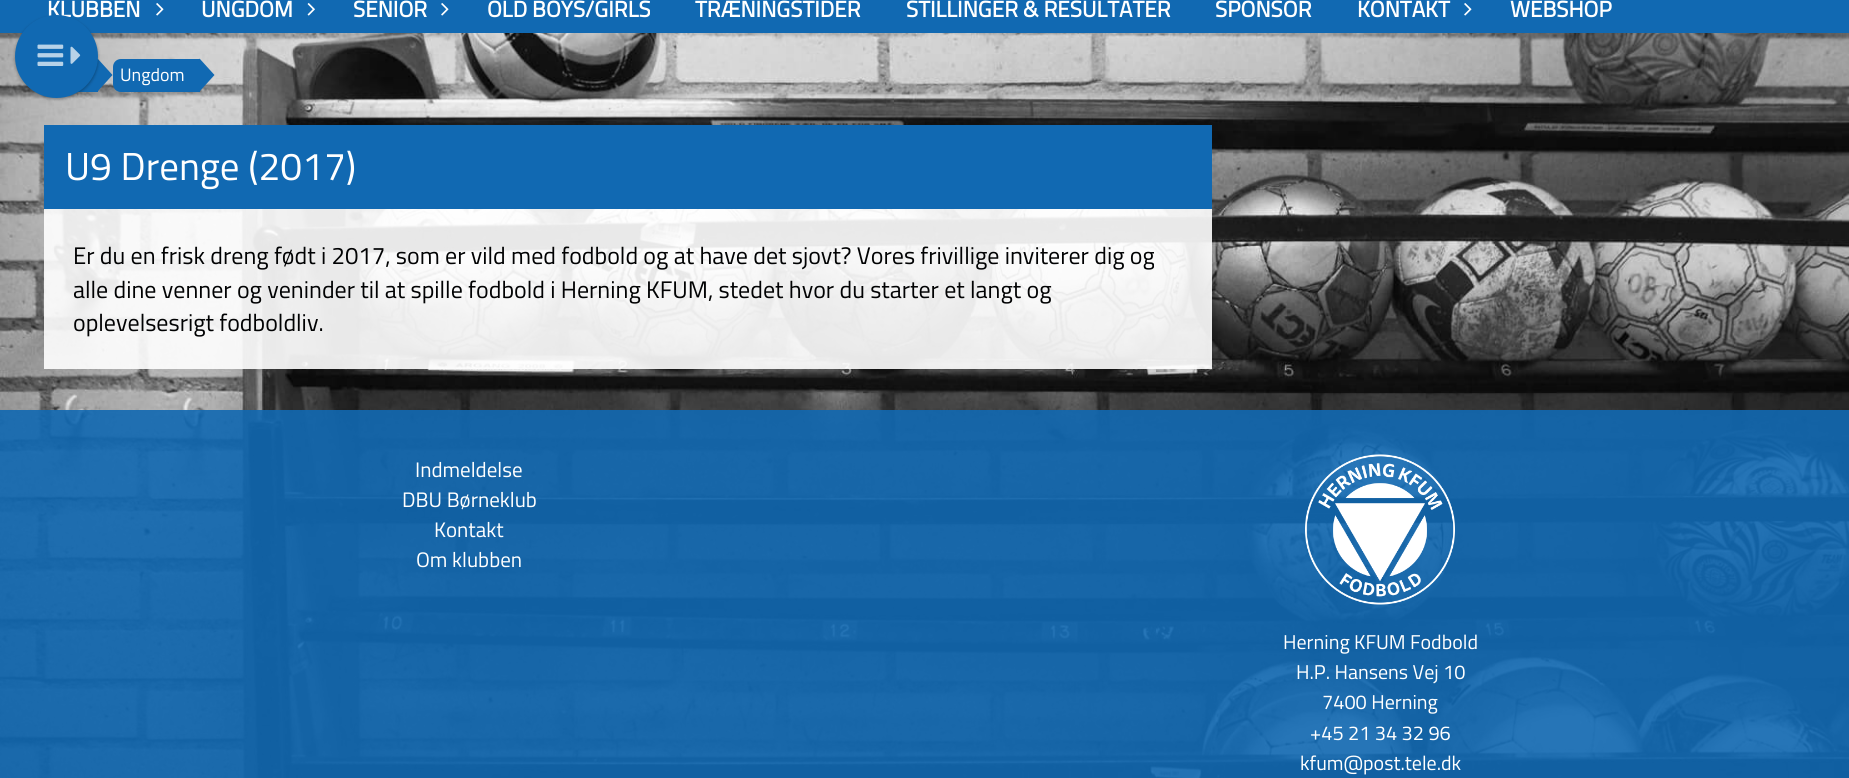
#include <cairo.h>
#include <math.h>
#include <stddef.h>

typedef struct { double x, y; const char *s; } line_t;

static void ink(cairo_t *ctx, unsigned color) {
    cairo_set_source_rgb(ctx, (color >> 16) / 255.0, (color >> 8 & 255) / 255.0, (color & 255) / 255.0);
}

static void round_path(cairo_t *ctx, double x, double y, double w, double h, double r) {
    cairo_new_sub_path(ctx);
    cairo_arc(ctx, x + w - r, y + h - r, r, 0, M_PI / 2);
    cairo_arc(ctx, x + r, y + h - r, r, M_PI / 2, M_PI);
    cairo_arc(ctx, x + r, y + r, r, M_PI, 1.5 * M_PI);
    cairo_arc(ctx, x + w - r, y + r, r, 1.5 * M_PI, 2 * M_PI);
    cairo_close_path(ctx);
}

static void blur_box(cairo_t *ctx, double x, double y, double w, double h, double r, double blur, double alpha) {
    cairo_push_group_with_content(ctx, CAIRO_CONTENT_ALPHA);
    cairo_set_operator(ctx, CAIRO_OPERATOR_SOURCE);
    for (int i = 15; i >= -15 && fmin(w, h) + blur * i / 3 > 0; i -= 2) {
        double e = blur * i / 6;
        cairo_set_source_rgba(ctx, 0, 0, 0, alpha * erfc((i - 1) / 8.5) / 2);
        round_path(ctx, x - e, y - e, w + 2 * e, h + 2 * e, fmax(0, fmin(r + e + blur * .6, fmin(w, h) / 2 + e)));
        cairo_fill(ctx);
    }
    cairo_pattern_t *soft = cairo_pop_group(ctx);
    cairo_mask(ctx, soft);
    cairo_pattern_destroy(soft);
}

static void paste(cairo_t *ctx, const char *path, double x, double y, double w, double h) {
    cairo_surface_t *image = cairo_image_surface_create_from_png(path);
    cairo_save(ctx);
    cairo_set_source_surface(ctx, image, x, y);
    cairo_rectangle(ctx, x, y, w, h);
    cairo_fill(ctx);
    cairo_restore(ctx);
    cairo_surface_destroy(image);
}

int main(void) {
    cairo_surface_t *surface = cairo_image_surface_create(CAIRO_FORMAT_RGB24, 1849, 778);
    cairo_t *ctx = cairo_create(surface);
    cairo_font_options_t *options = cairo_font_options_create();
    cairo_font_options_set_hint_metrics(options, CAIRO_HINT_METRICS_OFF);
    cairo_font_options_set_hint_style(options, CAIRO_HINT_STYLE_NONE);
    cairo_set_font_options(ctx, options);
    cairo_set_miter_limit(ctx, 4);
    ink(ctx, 0xFFFFFF);
    cairo_paint(ctx);
    ink(ctx, 0x1169B2);
    cairo_rectangle(ctx, 0, 0, 1849, 33);
    cairo_fill(ctx);
    cairo_select_font_face(ctx, "Titillium Web", CAIRO_FONT_SLANT_NORMAL, CAIRO_FONT_WEIGHT_BOLD);
    cairo_set_font_size(ctx, 22.5);
    ink(ctx, 0xFFFFFF);
    cairo_move_to(ctx, 47, 17);
    cairo_show_text(ctx, "KLUBBEN");
    paste(ctx, "media/1.png", 156, 3, 8, 13);
    cairo_move_to(ctx, 201, 17);
    cairo_show_text(ctx, "UNGDOM");
    paste(ctx, "media/2.png", 307, 3, 8, 13);
    cairo_move_to(ctx, 353, 17);
    cairo_show_text(ctx, "SENIOR");
    paste(ctx, "media/1.png", 441, 3, 8, 13);
    {
        static const line_t items[] = {
            {487, 17, "OLD BOYS/GIRLS"},
            {695, 17, "TRÆNINGSTIDER"},
            {906, 17, "STILLINGER & RESULTATER"},
            {1215, 17, "SPONSOR"},
            {1357, 17, "KONTAKT"},
        };
        for (size_t i = 0; i < sizeof items / sizeof *items; i++) {
            cairo_move_to(ctx, items[i].x, items[i].y);
            cairo_show_text(ctx, items[i].s);
        }
    }
    paste(ctx, "media/1.png", 1464, 3, 8, 13);
    cairo_move_to(ctx, 1510, 17);
    cairo_show_text(ctx, "WEBSHOP");
    paste(ctx, "media/6.png", 0, 33, 1849, 745);
    ink(ctx, 0x1169B2);
    cairo_rectangle(ctx, 78, 59, 20, 33);
    cairo_fill(ctx);
    cairo_new_path(ctx);
    cairo_move_to(ctx, 97.5, 91.5);
    cairo_line_to(ctx, 97.5, 58.5);
    cairo_line_to(ctx, 112.5, 75);
    cairo_close_path(ctx);
    cairo_fill(ctx);
    ink(ctx, 0x000000);
    blur_box(ctx, 15, 17, 83, 82, 41, 1.5, 0.24);
    blur_box(ctx, 15, 17, 83, 82, 41, 2, 0.12);
    ink(ctx, 0x1169B2);
    cairo_arc(ctx, 56.5, 56.5, 41.5, 0, 2 * M_PI);
    cairo_fill(ctx);
    paste(ctx, "media/3.png", 37, 44, 27, 22);
    paste(ctx, "media/4.png", 70, 46, 11, 18);
    cairo_new_path(ctx);
    cairo_move_to(ctx, 121, 59);
    cairo_line_to(ctx, 200, 59);
    cairo_line_to(ctx, 200, 92);
    cairo_line_to(ctx, 121, 92);
    cairo_curve_to(ctx, 116.5, 92, 113, 88.5, 113, 84);
    cairo_line_to(ctx, 113, 67);
    cairo_curve_to(ctx, 113, 62.5, 116.5, 59, 121, 59);
    cairo_close_path(ctx);
    cairo_fill(ctx);
    cairo_select_font_face(ctx, "Titillium Web", CAIRO_FONT_SLANT_NORMAL, CAIRO_FONT_WEIGHT_NORMAL);
    cairo_set_font_size(ctx, 18);
    ink(ctx, 0xFFFFFF);
    cairo_move_to(ctx, 120, 81);
    cairo_show_text(ctx, "Ungdom");
    ink(ctx, 0x1169B2);
    cairo_new_path(ctx);
    cairo_move_to(ctx, 199.5, 91.5);
    cairo_line_to(ctx, 199.5, 58.5);
    cairo_line_to(ctx, 214.5, 75);
    cairo_close_path(ctx);
    cairo_fill(ctx);
    cairo_set_source_rgba(ctx, 1, 1, 1, 0.9);
    cairo_rectangle(ctx, 44, 209, 1168, 160);
    cairo_fill(ctx);
    ink(ctx, 0x1169B2);
    cairo_rectangle(ctx, 44, 125, 1168, 84);
    cairo_fill(ctx);
    cairo_set_font_size(ctx, 39);
    ink(ctx, 0xFFFFFF);
    cairo_move_to(ctx, 65, 180);
    cairo_show_text(ctx, "U9 Drenge (2017)");
    cairo_set_font_size(ctx, 24);
    ink(ctx, 0x010203);
    {
        static const line_t items[] = {
            {73, 264, "Er du en frisk dreng født i 2017, som er vild med fodbold og at have det sjovt? Vores frivillige inviterer dig og"},
            {73, 298, "alle dine venner og veninder til at spille fodbold i Herning KFUM, stedet hvor du starter et langt og"},
            {73, 331, "oplevelsesrigt fodboldliv."},
        };
        for (size_t i = 0; i < sizeof items / sizeof *items; i++) {
            cairo_move_to(ctx, items[i].x, items[i].y);
            cairo_show_text(ctx, items[i].s);
        }
    }
    cairo_set_source_rgba(ctx, 0.067, 0.412, 0.698, 0.9);
    cairo_rectangle(ctx, 0, 410, 1849, 368);
    cairo_fill(ctx);
    cairo_set_font_size(ctx, 21);
    ink(ctx, 0xFFFFFF);
    {
        static const line_t items[] = {
            {415, 477, "Indmeldelse"},
            {402, 507, "DBU Børneklub"},
            {434, 537, "Kontakt"},
            {416, 567, "Om klubben"},
        };
        for (size_t i = 0; i < sizeof items / sizeof *items; i++) {
            cairo_move_to(ctx, items[i].x, items[i].y);
            cairo_show_text(ctx, items[i].s);
        }
    }
    paste(ctx, "media/5.png", 1305, 454, 150, 151);
    cairo_set_font_size(ctx, 20);
    {
        static const line_t items[] = {
            {1283, 649, "Herning KFUM Fodbold"},
            {1296, 679, "H.P. Hansens Vej 10"},
            {1322, 709, "7400 Herning"},
            {1310, 740, "+45 21 34 32 96"},
            {1300, 770, "kfum@post.tele.dk"},
        };
        for (size_t i = 0; i < sizeof items / sizeof *items; i++) {
            cairo_move_to(ctx, items[i].x, items[i].y);
            cairo_show_text(ctx, items[i].s);
        }
    }
    cairo_surface_write_to_png(surface, "image.png");
    cairo_font_options_destroy(options);
    cairo_destroy(ctx);
    cairo_surface_destroy(surface);
    return 0;
}
